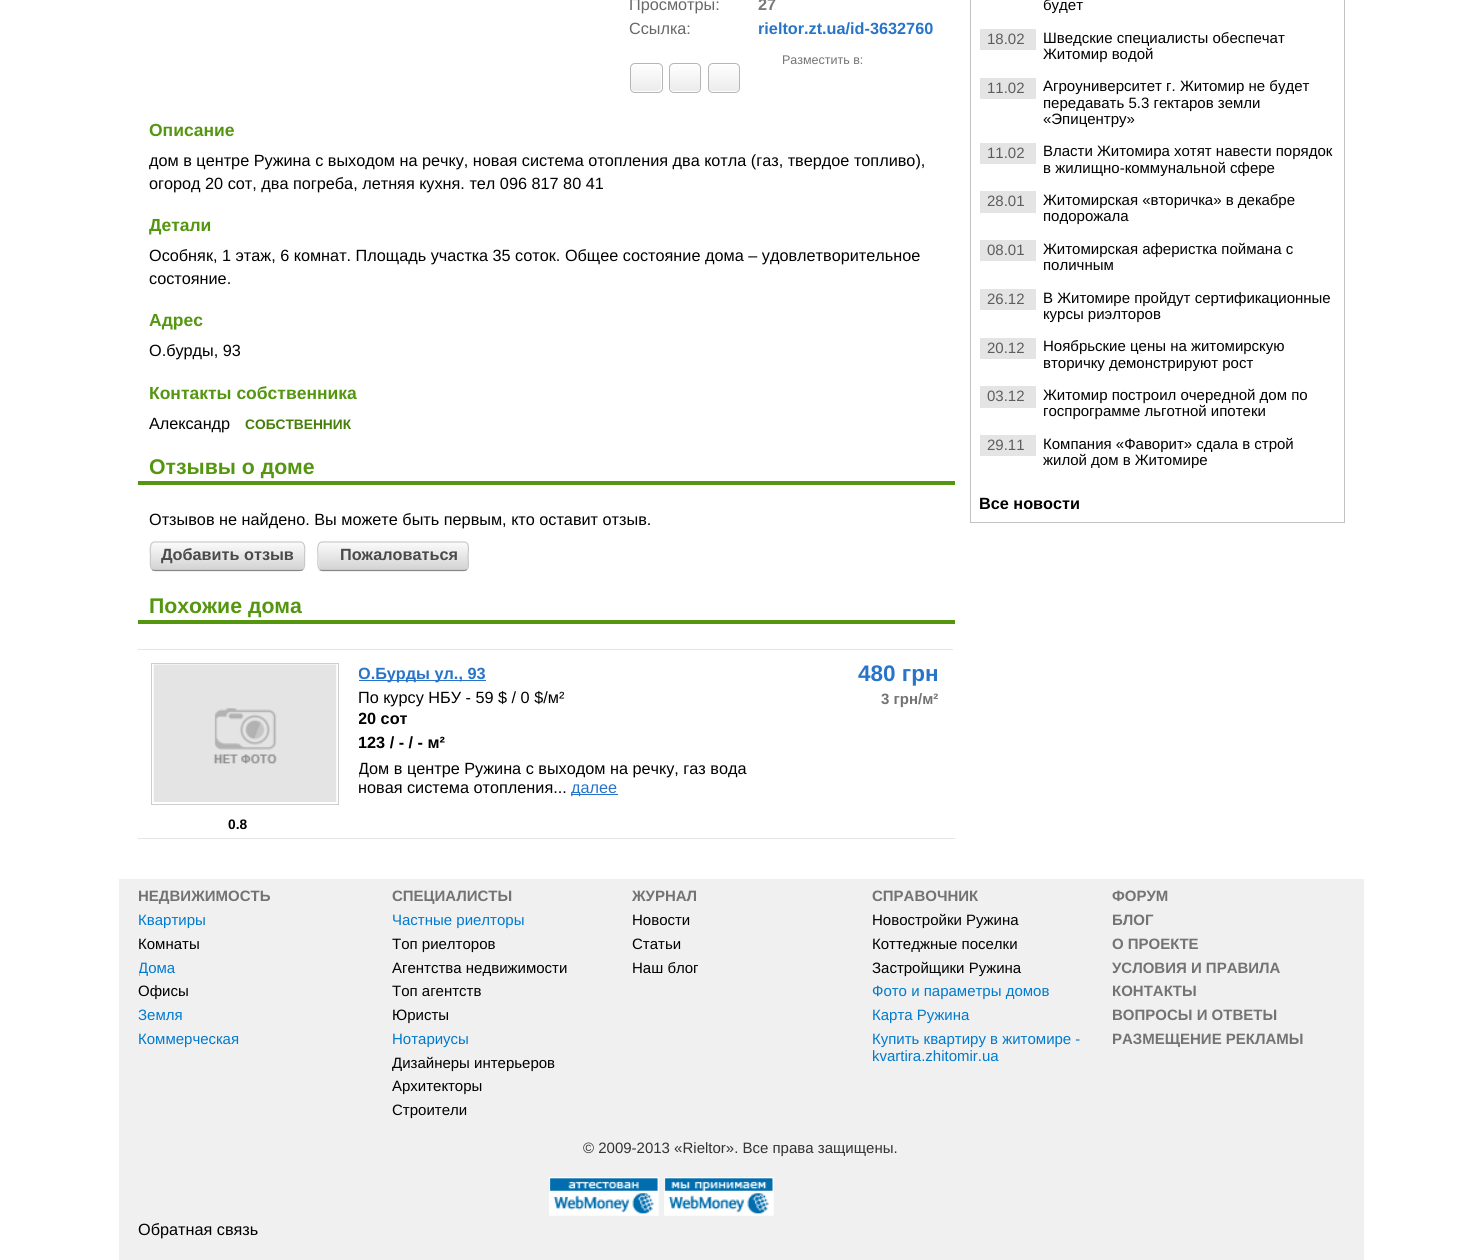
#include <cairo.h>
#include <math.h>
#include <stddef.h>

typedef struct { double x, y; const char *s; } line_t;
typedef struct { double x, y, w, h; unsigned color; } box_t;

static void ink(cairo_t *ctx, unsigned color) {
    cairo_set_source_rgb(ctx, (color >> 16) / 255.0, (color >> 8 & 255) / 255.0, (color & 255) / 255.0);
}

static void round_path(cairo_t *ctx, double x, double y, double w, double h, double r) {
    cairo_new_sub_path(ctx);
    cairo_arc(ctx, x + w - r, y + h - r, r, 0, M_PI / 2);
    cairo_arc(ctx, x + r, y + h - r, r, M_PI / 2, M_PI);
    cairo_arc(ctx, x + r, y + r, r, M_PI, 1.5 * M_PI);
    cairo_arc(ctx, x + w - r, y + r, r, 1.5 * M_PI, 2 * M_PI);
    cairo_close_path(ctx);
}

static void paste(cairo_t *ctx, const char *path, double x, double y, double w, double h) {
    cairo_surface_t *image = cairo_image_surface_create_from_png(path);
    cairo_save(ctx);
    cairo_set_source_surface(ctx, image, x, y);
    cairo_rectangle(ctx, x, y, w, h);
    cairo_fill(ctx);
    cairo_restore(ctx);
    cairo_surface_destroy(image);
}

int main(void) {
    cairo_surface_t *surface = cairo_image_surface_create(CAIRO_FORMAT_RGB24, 1481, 1260);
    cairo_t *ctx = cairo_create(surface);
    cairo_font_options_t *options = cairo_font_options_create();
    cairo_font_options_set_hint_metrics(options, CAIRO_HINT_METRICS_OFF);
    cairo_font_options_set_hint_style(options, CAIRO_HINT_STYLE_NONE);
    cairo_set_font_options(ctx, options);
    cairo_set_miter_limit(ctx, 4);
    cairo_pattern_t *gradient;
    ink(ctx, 0xFFFFFF);
    cairo_paint(ctx);
    cairo_select_font_face(ctx, "Liberation Sans", CAIRO_FONT_SLANT_NORMAL, CAIRO_FONT_WEIGHT_NORMAL);
    cairo_set_font_size(ctx, 16.25);
    ink(ctx, 0x686868);
    cairo_move_to(ctx, 629, 10);
    cairo_show_text(ctx, "Просмотры:");
    cairo_select_font_face(ctx, "Liberation Sans", CAIRO_FONT_SLANT_NORMAL, CAIRO_FONT_WEIGHT_BOLD);
    ink(ctx, 0x797979);
    cairo_move_to(ctx, 758, 10);
    cairo_show_text(ctx, "27");
    cairo_select_font_face(ctx, "Liberation Sans", CAIRO_FONT_SLANT_NORMAL, CAIRO_FONT_WEIGHT_NORMAL);
    ink(ctx, 0x686868);
    cairo_move_to(ctx, 629, 34);
    cairo_show_text(ctx, "Ссылка:");
    cairo_select_font_face(ctx, "Liberation Sans", CAIRO_FONT_SLANT_NORMAL, CAIRO_FONT_WEIGHT_BOLD);
    ink(ctx, 0x2774C9);
    cairo_move_to(ctx, 758, 34);
    cairo_show_text(ctx, "rieltor.zt.ua/id-3632760");
    cairo_select_font_face(ctx, "Liberation Sans", CAIRO_FONT_SLANT_NORMAL, CAIRO_FONT_WEIGHT_NORMAL);
    cairo_set_font_size(ctx, 12.5);
    ink(ctx, 0x737373);
    cairo_move_to(ctx, 782, 64);
    cairo_show_text(ctx, "Разместить в:");
    gradient = cairo_pattern_create_linear(646, 64, 646, 91);
    cairo_pattern_add_color_stop_rgba(gradient, 0, 1, 1, 1, 1);
    cairo_pattern_add_color_stop_rgba(gradient, 1, 0.922, 0.922, 0.922, 1);
    cairo_set_source(ctx, gradient);
    cairo_pattern_destroy(gradient);
    round_path(ctx, 631, 64, 30, 27, 4);
    cairo_fill(ctx);
    round_path(ctx, 630.5, 63.5, 32, 29, 4.5);
    ink(ctx, 0xB5B5B5);
    cairo_set_line_width(ctx, 1);
    cairo_stroke(ctx);
    gradient = cairo_pattern_create_linear(685, 64, 685, 91);
    cairo_pattern_add_color_stop_rgba(gradient, 0, 1, 1, 1, 1);
    cairo_pattern_add_color_stop_rgba(gradient, 1, 0.922, 0.922, 0.922, 1);
    cairo_set_source(ctx, gradient);
    cairo_pattern_destroy(gradient);
    round_path(ctx, 670, 64, 30, 27, 4);
    cairo_fill(ctx);
    round_path(ctx, 669.5, 63.5, 31, 29, 4.5);
    ink(ctx, 0xB5B5B5);
    cairo_stroke(ctx);
    gradient = cairo_pattern_create_linear(724, 64, 724, 91);
    cairo_pattern_add_color_stop_rgba(gradient, 0, 1, 1, 1, 1);
    cairo_pattern_add_color_stop_rgba(gradient, 1, 0.922, 0.922, 0.922, 1);
    cairo_set_source(ctx, gradient);
    cairo_pattern_destroy(gradient);
    round_path(ctx, 709, 64, 30, 27, 4);
    cairo_fill(ctx);
    round_path(ctx, 708.5, 63.5, 31, 29, 4.5);
    ink(ctx, 0xB5B5B5);
    cairo_stroke(ctx);
    cairo_select_font_face(ctx, "Liberation Sans", CAIRO_FONT_SLANT_NORMAL, CAIRO_FONT_WEIGHT_BOLD);
    cairo_set_font_size(ctx, 17.5);
    ink(ctx, 0x549610);
    cairo_move_to(ctx, 149, 136);
    cairo_show_text(ctx, "Описание");
    cairo_select_font_face(ctx, "Liberation Sans", CAIRO_FONT_SLANT_NORMAL, CAIRO_FONT_WEIGHT_NORMAL);
    cairo_set_font_size(ctx, 16.25);
    ink(ctx, 0x000000);
    cairo_move_to(ctx, 149, 166);
    cairo_show_text(ctx, "дом в центре Ружина с выходом на речку, новая система отопления два котла (газ, твердое топливо),");
    cairo_move_to(ctx, 149, 189);
    cairo_show_text(ctx, "огород 20 сот, два погреба, летняя кухня. тел 096 817 80 41");
    cairo_select_font_face(ctx, "Liberation Sans", CAIRO_FONT_SLANT_NORMAL, CAIRO_FONT_WEIGHT_BOLD);
    cairo_set_font_size(ctx, 17.5);
    ink(ctx, 0x549610);
    cairo_move_to(ctx, 149, 231);
    cairo_show_text(ctx, "Детали");
    cairo_select_font_face(ctx, "Liberation Sans", CAIRO_FONT_SLANT_NORMAL, CAIRO_FONT_WEIGHT_NORMAL);
    cairo_set_font_size(ctx, 16.25);
    ink(ctx, 0x000000);
    cairo_move_to(ctx, 149, 261);
    cairo_show_text(ctx, "Особняк, 1 этаж, 6 комнат. Площадь участка 35 соток. Общее состояние дома – удовлетворительное");
    cairo_move_to(ctx, 149, 284);
    cairo_show_text(ctx, "состояние.");
    cairo_select_font_face(ctx, "Liberation Sans", CAIRO_FONT_SLANT_NORMAL, CAIRO_FONT_WEIGHT_BOLD);
    cairo_set_font_size(ctx, 17.5);
    ink(ctx, 0x549610);
    cairo_move_to(ctx, 149, 326);
    cairo_show_text(ctx, "Адрес");
    cairo_select_font_face(ctx, "Liberation Sans", CAIRO_FONT_SLANT_NORMAL, CAIRO_FONT_WEIGHT_NORMAL);
    cairo_set_font_size(ctx, 16.25);
    ink(ctx, 0x000000);
    cairo_move_to(ctx, 149, 356);
    cairo_show_text(ctx, "О.бурды, 93");
    cairo_select_font_face(ctx, "Liberation Sans", CAIRO_FONT_SLANT_NORMAL, CAIRO_FONT_WEIGHT_BOLD);
    cairo_set_font_size(ctx, 17.5);
    ink(ctx, 0x549610);
    cairo_move_to(ctx, 149, 399);
    cairo_show_text(ctx, "Контакты собственника");
    cairo_select_font_face(ctx, "Liberation Sans", CAIRO_FONT_SLANT_NORMAL, CAIRO_FONT_WEIGHT_NORMAL);
    cairo_set_font_size(ctx, 16.25);
    ink(ctx, 0x000000);
    cairo_move_to(ctx, 149, 429);
    cairo_show_text(ctx, "Александр");
    cairo_select_font_face(ctx, "Liberation Sans", CAIRO_FONT_SLANT_NORMAL, CAIRO_FONT_WEIGHT_BOLD);
    cairo_set_font_size(ctx, 13.75);
    ink(ctx, 0x457F08);
    cairo_move_to(ctx, 245, 429);
    cairo_show_text(ctx, "СОБСТВЕННИК");
    ink(ctx, 0x549610);
    cairo_rectangle(ctx, 138, 481, 817, 4);
    cairo_fill(ctx);
    cairo_set_font_size(ctx, 21.25);
    cairo_move_to(ctx, 149, 474);
    cairo_show_text(ctx, "Отзывы о доме");
    cairo_select_font_face(ctx, "Liberation Sans", CAIRO_FONT_SLANT_NORMAL, CAIRO_FONT_WEIGHT_NORMAL);
    cairo_set_font_size(ctx, 16.25);
    ink(ctx, 0x000000);
    cairo_move_to(ctx, 149, 525);
    cairo_show_text(ctx, "Отзывов не найдено. Вы можете быть первым, кто оставит отзыв.");
    gradient = cairo_pattern_create_linear(228, 543, 228, 570);
    cairo_pattern_add_color_stop_rgba(gradient, 0, 0.98, 0.98, 0.98, 1);
    cairo_pattern_add_color_stop_rgba(gradient, 1, 0.827, 0.827, 0.827, 1);
    cairo_set_source(ctx, gradient);
    cairo_pattern_destroy(gradient);
    round_path(ctx, 151, 543, 153, 27, 4);
    cairo_fill(ctx);
    cairo_new_path(ctx);
    cairo_move_to(ctx, 303, 569.5);
    cairo_curve_to(ctx, 302.5, 570, 301, 570.5, 300, 570.5);
    cairo_line_to(ctx, 155, 570.5);
    cairo_curve_to(ctx, 154, 570.5, 152.5, 570, 152, 569.5);
    ink(ctx, 0x888888);
    cairo_set_line_width(ctx, 1.2);
    cairo_stroke(ctx);
    cairo_new_path(ctx);
    cairo_move_to(ctx, 152, 569.5);
    cairo_curve_to(ctx, 149.5, 567, 150.5, 559.5, 150.5, 556);
    cairo_curve_to(ctx, 150.5, 552.5, 148.5, 542, 155, 542);
    cairo_line_to(ctx, 300, 542);
    cairo_curve_to(ctx, 306.5, 542, 304.5, 552.5, 304.5, 556);
    cairo_curve_to(ctx, 304.5, 559.5, 305.5, 567, 303, 569.5);
    ink(ctx, 0xC8C8C8);
    cairo_stroke(ctx);
    cairo_select_font_face(ctx, "Liberation Sans", CAIRO_FONT_SLANT_NORMAL, CAIRO_FONT_WEIGHT_BOLD);
    ink(ctx, 0x4A4A4A);
    cairo_move_to(ctx, 161, 560);
    cairo_show_text(ctx, "Добавить отзыв");
    gradient = cairo_pattern_create_linear(393, 543, 393, 570);
    cairo_pattern_add_color_stop_rgba(gradient, 0, 0.98, 0.98, 0.98, 1);
    cairo_pattern_add_color_stop_rgba(gradient, 1, 0.827, 0.827, 0.827, 1);
    cairo_set_source(ctx, gradient);
    cairo_pattern_destroy(gradient);
    round_path(ctx, 319, 543, 149, 27, 4);
    cairo_fill(ctx);
    cairo_new_path(ctx);
    cairo_move_to(ctx, 467, 569.5);
    cairo_curve_to(ctx, 466, 570, 465, 570.5, 464, 570.5);
    cairo_line_to(ctx, 322.5, 570.5);
    cairo_curve_to(ctx, 321.5, 570.5, 320, 570, 319.5, 569.5);
    ink(ctx, 0x888888);
    cairo_stroke(ctx);
    cairo_new_path(ctx);
    cairo_move_to(ctx, 319.5, 569.5);
    cairo_curve_to(ctx, 317, 567, 318, 559.5, 318, 556);
    cairo_curve_to(ctx, 318, 552.5, 316, 542, 322.5, 542);
    cairo_line_to(ctx, 464, 542);
    cairo_curve_to(ctx, 470.5, 542, 468, 552.5, 468, 556);
    cairo_curve_to(ctx, 468, 559.5, 469.5, 567, 467, 569.5);
    ink(ctx, 0xC8C8C8);
    cairo_stroke(ctx);
    ink(ctx, 0x4A4A4A);
    cairo_move_to(ctx, 340, 560);
    cairo_show_text(ctx, "Пожаловаться");
    ink(ctx, 0x549610);
    cairo_rectangle(ctx, 138, 620, 817, 4);
    cairo_fill(ctx);
    cairo_set_font_size(ctx, 21.25);
    cairo_move_to(ctx, 149, 613);
    cairo_show_text(ctx, "Похожие дома");
    {
        static const box_t items[] = {
            {138, 838, 817, 1, 0xE5E5E5},
            {138, 649, 815, 1, 0xE5E5E5},
            {359, 680, 127, 1, 0x2774C9},
        };
        for (size_t i = 0; i < sizeof items / sizeof *items; i++) {
            ink(ctx, items[i].color);
            cairo_rectangle(ctx, items[i].x, items[i].y, items[i].w, items[i].h);
            cairo_fill(ctx);
        }
    }
    cairo_save(ctx);
    cairo_rectangle(ctx, 359, 663, 411, 143);
    cairo_clip(ctx);
    cairo_set_font_size(ctx, 16.25);
    cairo_move_to(ctx, 358, 679);
    cairo_show_text(ctx, "О.Бурды ул., 93");
    cairo_restore(ctx);
    cairo_select_font_face(ctx, "Liberation Sans", CAIRO_FONT_SLANT_NORMAL, CAIRO_FONT_WEIGHT_NORMAL);
    cairo_set_font_size(ctx, 16.25);
    ink(ctx, 0x000000);
    cairo_move_to(ctx, 358, 703);
    cairo_show_text(ctx, "По курсу НБУ - 59 $ / 0 $/м²");
    cairo_save(ctx);
    cairo_rectangle(ctx, 359, 663, 411, 143);
    cairo_clip(ctx);
    cairo_select_font_face(ctx, "Liberation Sans", CAIRO_FONT_SLANT_NORMAL, CAIRO_FONT_WEIGHT_BOLD);
    cairo_move_to(ctx, 358, 724);
    cairo_show_text(ctx, "20 сот");
    cairo_restore(ctx);
    cairo_select_font_face(ctx, "Liberation Sans", CAIRO_FONT_SLANT_NORMAL, CAIRO_FONT_WEIGHT_BOLD);
    cairo_move_to(ctx, 358, 748);
    cairo_show_text(ctx, "123 / - / - м²");
    cairo_save(ctx);
    cairo_rectangle(ctx, 359, 663, 411, 143);
    cairo_clip(ctx);
    cairo_select_font_face(ctx, "Liberation Sans", CAIRO_FONT_SLANT_NORMAL, CAIRO_FONT_WEIGHT_NORMAL);
    cairo_move_to(ctx, 358, 774);
    cairo_show_text(ctx, "Дом в центре Ружина с выходом на речку, газ вода");
    cairo_restore(ctx);
    cairo_select_font_face(ctx, "Liberation Sans", CAIRO_FONT_SLANT_NORMAL, CAIRO_FONT_WEIGHT_NORMAL);
    cairo_move_to(ctx, 358, 793);
    cairo_show_text(ctx, "новая система отопления...");
    ink(ctx, 0x2774C9);
    cairo_rectangle(ctx, 571, 794, 47, 1);
    cairo_fill(ctx);
    cairo_move_to(ctx, 571, 793);
    cairo_show_text(ctx, "далее");
    cairo_select_font_face(ctx, "Liberation Sans", CAIRO_FONT_SLANT_NORMAL, CAIRO_FONT_WEIGHT_BOLD);
    cairo_set_font_size(ctx, 22.5);
    cairo_move_to(ctx, 858, 681);
    cairo_show_text(ctx, "480 грн");
    cairo_set_font_size(ctx, 15);
    ink(ctx, 0x737373);
    cairo_move_to(ctx, 881, 704);
    cairo_show_text(ctx, "3 грн/м²");
    cairo_rectangle(ctx, 151.5, 663.5, 187, 141);
    ink(ctx, 0xCDCDCD);
    cairo_set_line_width(ctx, 1);
    cairo_stroke(ctx);
    paste(ctx, "media/1.png", 153, 664, 184, 138);
    cairo_set_font_size(ctx, 13.75);
    ink(ctx, 0x000000);
    cairo_move_to(ctx, 228, 829);
    cairo_show_text(ctx, "0.8");
    cairo_rectangle(ctx, 970.5, -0.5, 374, 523);
    ink(ctx, 0xC3C3C3);
    cairo_stroke(ctx);
    cairo_select_font_face(ctx, "Liberation Sans", CAIRO_FONT_SLANT_NORMAL, CAIRO_FONT_WEIGHT_NORMAL);
    cairo_set_font_size(ctx, 15);
    ink(ctx, 0x000000);
    cairo_move_to(ctx, 1043, 10);
    cairo_show_text(ctx, "будет");
    ink(ctx, 0xE4E4E4);
    cairo_rectangle(ctx, 980, 29, 56, 21);
    cairo_fill(ctx);
    ink(ctx, 0x5D5D5D);
    cairo_move_to(ctx, 987, 44);
    cairo_show_text(ctx, "18.02");
    ink(ctx, 0x000000);
    cairo_move_to(ctx, 1043, 43);
    cairo_show_text(ctx, "Шведские специалисты обеспечат");
    cairo_move_to(ctx, 1043, 59);
    cairo_show_text(ctx, "Житомир водой");
    ink(ctx, 0xE4E4E4);
    cairo_rectangle(ctx, 980, 78, 56, 21);
    cairo_fill(ctx);
    ink(ctx, 0x5D5D5D);
    cairo_move_to(ctx, 987, 93);
    cairo_show_text(ctx, "11.02");
    ink(ctx, 0x000000);
    {
        static const line_t items[] = {
            {1043, 91, "Агроуниверситет г. Житомир не будет"},
            {1043, 108, "передавать 5.3 гектаров земли"},
            {1043, 124, "«Эпицентру»"},
        };
        for (size_t i = 0; i < sizeof items / sizeof *items; i++) {
            cairo_move_to(ctx, items[i].x, items[i].y);
            cairo_show_text(ctx, items[i].s);
        }
    }
    ink(ctx, 0xE4E4E4);
    cairo_rectangle(ctx, 980, 143, 56, 21);
    cairo_fill(ctx);
    ink(ctx, 0x5D5D5D);
    cairo_move_to(ctx, 987, 158);
    cairo_show_text(ctx, "11.02");
    ink(ctx, 0x000000);
    cairo_move_to(ctx, 1043, 156);
    cairo_show_text(ctx, "Власти Житомира хотят навести порядок");
    cairo_save(ctx);
    cairo_rectangle(ctx, 1044, 143, 291, 33);
    cairo_clip(ctx);
    cairo_move_to(ctx, 1043, 173);
    cairo_show_text(ctx, "в жилищно-коммунальной сфере");
    cairo_restore(ctx);
    ink(ctx, 0xE4E4E4);
    cairo_rectangle(ctx, 980, 191, 56, 22);
    cairo_fill(ctx);
    ink(ctx, 0x5D5D5D);
    cairo_move_to(ctx, 987, 206);
    cairo_show_text(ctx, "28.01");
    ink(ctx, 0x000000);
    cairo_move_to(ctx, 1043, 205);
    cairo_show_text(ctx, "Житомирская «вторичка» в декабре");
    cairo_move_to(ctx, 1043, 221);
    cairo_show_text(ctx, "подорожала");
    ink(ctx, 0xE4E4E4);
    cairo_rectangle(ctx, 980, 240, 56, 21);
    cairo_fill(ctx);
    ink(ctx, 0x5D5D5D);
    cairo_move_to(ctx, 987, 255);
    cairo_show_text(ctx, "08.01");
    ink(ctx, 0x000000);
    cairo_move_to(ctx, 1043, 254);
    cairo_show_text(ctx, "Житомирская аферистка поймана с");
    cairo_move_to(ctx, 1043, 270);
    cairo_show_text(ctx, "поличным");
    ink(ctx, 0xE4E4E4);
    cairo_rectangle(ctx, 980, 289, 56, 21);
    cairo_fill(ctx);
    ink(ctx, 0x5D5D5D);
    cairo_move_to(ctx, 987, 304);
    cairo_show_text(ctx, "26.12");
    ink(ctx, 0x000000);
    cairo_move_to(ctx, 1043, 303);
    cairo_show_text(ctx, "В Житомире пройдут сертификационные");
    cairo_move_to(ctx, 1043, 319);
    cairo_show_text(ctx, "курсы риэлторов");
    ink(ctx, 0xE4E4E4);
    cairo_rectangle(ctx, 980, 338, 56, 21);
    cairo_fill(ctx);
    ink(ctx, 0x5D5D5D);
    cairo_move_to(ctx, 987, 353);
    cairo_show_text(ctx, "20.12");
    ink(ctx, 0x000000);
    cairo_move_to(ctx, 1043, 351);
    cairo_show_text(ctx, "Ноябрьские цены на житомирскую");
    cairo_save(ctx);
    cairo_rectangle(ctx, 1044, 338, 291, 33);
    cairo_clip(ctx);
    cairo_move_to(ctx, 1043, 368);
    cairo_show_text(ctx, "вторичку демонстрируют рост");
    cairo_restore(ctx);
    ink(ctx, 0xE4E4E4);
    cairo_rectangle(ctx, 980, 386, 56, 22);
    cairo_fill(ctx);
    ink(ctx, 0x5D5D5D);
    cairo_move_to(ctx, 987, 401);
    cairo_show_text(ctx, "03.12");
    ink(ctx, 0x000000);
    cairo_move_to(ctx, 1043, 400);
    cairo_show_text(ctx, "Житомир построил очередной дом по");
    cairo_move_to(ctx, 1043, 416);
    cairo_show_text(ctx, "госпрограмме льготной ипотеки");
    ink(ctx, 0xE4E4E4);
    cairo_rectangle(ctx, 980, 435, 56, 21);
    cairo_fill(ctx);
    ink(ctx, 0x5D5D5D);
    cairo_move_to(ctx, 987, 450);
    cairo_show_text(ctx, "29.11");
    ink(ctx, 0x000000);
    cairo_move_to(ctx, 1043, 449);
    cairo_show_text(ctx, "Компания «Фаворит» сдала в строй");
    cairo_move_to(ctx, 1043, 465);
    cairo_show_text(ctx, "жилой дом в Житомире");
    cairo_select_font_face(ctx, "Liberation Sans", CAIRO_FONT_SLANT_NORMAL, CAIRO_FONT_WEIGHT_BOLD);
    cairo_set_font_size(ctx, 16.25);
    cairo_move_to(ctx, 979, 509);
    cairo_show_text(ctx, "Все новости");
    ink(ctx, 0xF0F0F0);
    cairo_rectangle(ctx, 119, 879, 1245, 381);
    cairo_fill(ctx);
    cairo_set_font_size(ctx, 15);
    ink(ctx, 0x737373);
    cairo_move_to(ctx, 138, 901);
    cairo_show_text(ctx, "НЕДВИЖИМОСТЬ");
    cairo_select_font_face(ctx, "Liberation Sans", CAIRO_FONT_SLANT_NORMAL, CAIRO_FONT_WEIGHT_NORMAL);
    ink(ctx, 0x007ACE);
    cairo_move_to(ctx, 138, 925);
    cairo_show_text(ctx, "Квартиры");
    ink(ctx, 0x000000);
    cairo_move_to(ctx, 138, 949);
    cairo_show_text(ctx, "Комнаты");
    cairo_save(ctx);
    cairo_rectangle(ctx, 139, 888, 1205, 231);
    cairo_clip(ctx);
    ink(ctx, 0x007ACE);
    cairo_move_to(ctx, 138, 973);
    cairo_show_text(ctx, "Дома");
    cairo_restore(ctx);
    cairo_move_to(ctx, 138, 996);
    cairo_show_text(ctx, "Офисы");
    ink(ctx, 0x007ACE);
    cairo_move_to(ctx, 138, 1020);
    cairo_show_text(ctx, "Земля");
    cairo_move_to(ctx, 138, 1044);
    cairo_show_text(ctx, "Коммерческая");
    cairo_select_font_face(ctx, "Liberation Sans", CAIRO_FONT_SLANT_NORMAL, CAIRO_FONT_WEIGHT_BOLD);
    ink(ctx, 0x737373);
    cairo_move_to(ctx, 392, 901);
    cairo_show_text(ctx, "СПЕЦИАЛИСТЫ");
    cairo_select_font_face(ctx, "Liberation Sans", CAIRO_FONT_SLANT_NORMAL, CAIRO_FONT_WEIGHT_NORMAL);
    ink(ctx, 0x007ACE);
    cairo_move_to(ctx, 392, 925);
    cairo_show_text(ctx, "Частные риелторы");
    ink(ctx, 0x000000);
    {
        static const line_t items[] = {
            {392, 949, "Топ риелторов"},
            {392, 973, "Агентства недвижимости"},
            {392, 996, "Топ агентств"},
            {392, 1020, "Юристы"},
        };
        for (size_t i = 0; i < sizeof items / sizeof *items; i++) {
            cairo_move_to(ctx, items[i].x, items[i].y);
            cairo_show_text(ctx, items[i].s);
        }
    }
    ink(ctx, 0x007ACE);
    cairo_move_to(ctx, 392, 1044);
    cairo_show_text(ctx, "Нотариусы");
    ink(ctx, 0x000000);
    {
        static const line_t items[] = {
            {392, 1068, "Дизайнеры интерьеров"},
            {392, 1091, "Архитекторы"},
            {392, 1115, "Строители"},
        };
        for (size_t i = 0; i < sizeof items / sizeof *items; i++) {
            cairo_move_to(ctx, items[i].x, items[i].y);
            cairo_show_text(ctx, items[i].s);
        }
    }
    cairo_select_font_face(ctx, "Liberation Sans", CAIRO_FONT_SLANT_NORMAL, CAIRO_FONT_WEIGHT_BOLD);
    ink(ctx, 0x737373);
    cairo_move_to(ctx, 632, 901);
    cairo_show_text(ctx, "ЖУРНАЛ");
    cairo_select_font_face(ctx, "Liberation Sans", CAIRO_FONT_SLANT_NORMAL, CAIRO_FONT_WEIGHT_NORMAL);
    ink(ctx, 0x000000);
    {
        static const line_t items[] = {
            {632, 925, "Новости"},
            {632, 949, "Статьи"},
            {632, 973, "Наш блог"},
        };
        for (size_t i = 0; i < sizeof items / sizeof *items; i++) {
            cairo_move_to(ctx, items[i].x, items[i].y);
            cairo_show_text(ctx, items[i].s);
        }
    }
    cairo_select_font_face(ctx, "Liberation Sans", CAIRO_FONT_SLANT_NORMAL, CAIRO_FONT_WEIGHT_BOLD);
    ink(ctx, 0x737373);
    cairo_move_to(ctx, 872, 901);
    cairo_show_text(ctx, "СПРАВОЧНИК");
    cairo_select_font_face(ctx, "Liberation Sans", CAIRO_FONT_SLANT_NORMAL, CAIRO_FONT_WEIGHT_NORMAL);
    ink(ctx, 0x000000);
    {
        static const line_t items[] = {
            {872, 925, "Новостройки Ружина"},
            {872, 949, "Коттеджные поселки"},
            {872, 973, "Застройщики Ружина"},
        };
        for (size_t i = 0; i < sizeof items / sizeof *items; i++) {
            cairo_move_to(ctx, items[i].x, items[i].y);
            cairo_show_text(ctx, items[i].s);
        }
    }
    ink(ctx, 0x007ACE);
    {
        static const line_t items[] = {
            {872, 996, "Фото и параметры домов"},
            {872, 1020, "Карта Ружина"},
            {872, 1044, "Купить квартиру в житомире -"},
            {872, 1061, "kvartira.zhitomir.ua"},
        };
        for (size_t i = 0; i < sizeof items / sizeof *items; i++) {
            cairo_move_to(ctx, items[i].x, items[i].y);
            cairo_show_text(ctx, items[i].s);
        }
    }
    cairo_select_font_face(ctx, "Liberation Sans", CAIRO_FONT_SLANT_NORMAL, CAIRO_FONT_WEIGHT_BOLD);
    ink(ctx, 0x737373);
    {
        static const line_t items[] = {
            {1112, 901, "ФОРУМ"},
            {1112, 925, "БЛОГ"},
            {1112, 949, "О ПРОЕКТЕ"},
            {1112, 973, "УСЛОВИЯ И ПРАВИЛА"},
            {1112, 996, "КОНТАКТЫ"},
            {1112, 1020, "ВОПРОСЫ И ОТВЕТЫ"},
            {1112, 1044, "РАЗМЕЩЕНИЕ РЕКЛАМЫ"},
        };
        for (size_t i = 0; i < sizeof items / sizeof *items; i++) {
            cairo_move_to(ctx, items[i].x, items[i].y);
            cairo_show_text(ctx, items[i].s);
        }
    }
    cairo_select_font_face(ctx, "Liberation Sans", CAIRO_FONT_SLANT_NORMAL, CAIRO_FONT_WEIGHT_NORMAL);
    ink(ctx, 0x333333);
    cairo_move_to(ctx, 583, 1153);
    cairo_show_text(ctx, "© 2009-2013 «Rieltor». Все права защищены.");
    paste(ctx, "media/2.png", 549, 1177, 110, 39);
    paste(ctx, "media/3.png", 664, 1177, 110, 39);
    cairo_set_font_size(ctx, 16.25);
    ink(ctx, 0x000000);
    cairo_move_to(ctx, 138, 1235);
    cairo_show_text(ctx, "Обратная связь");
    cairo_surface_write_to_png(surface, "image.png");
    cairo_font_options_destroy(options);
    cairo_destroy(ctx);
    cairo_surface_destroy(surface);
    return 0;
}
